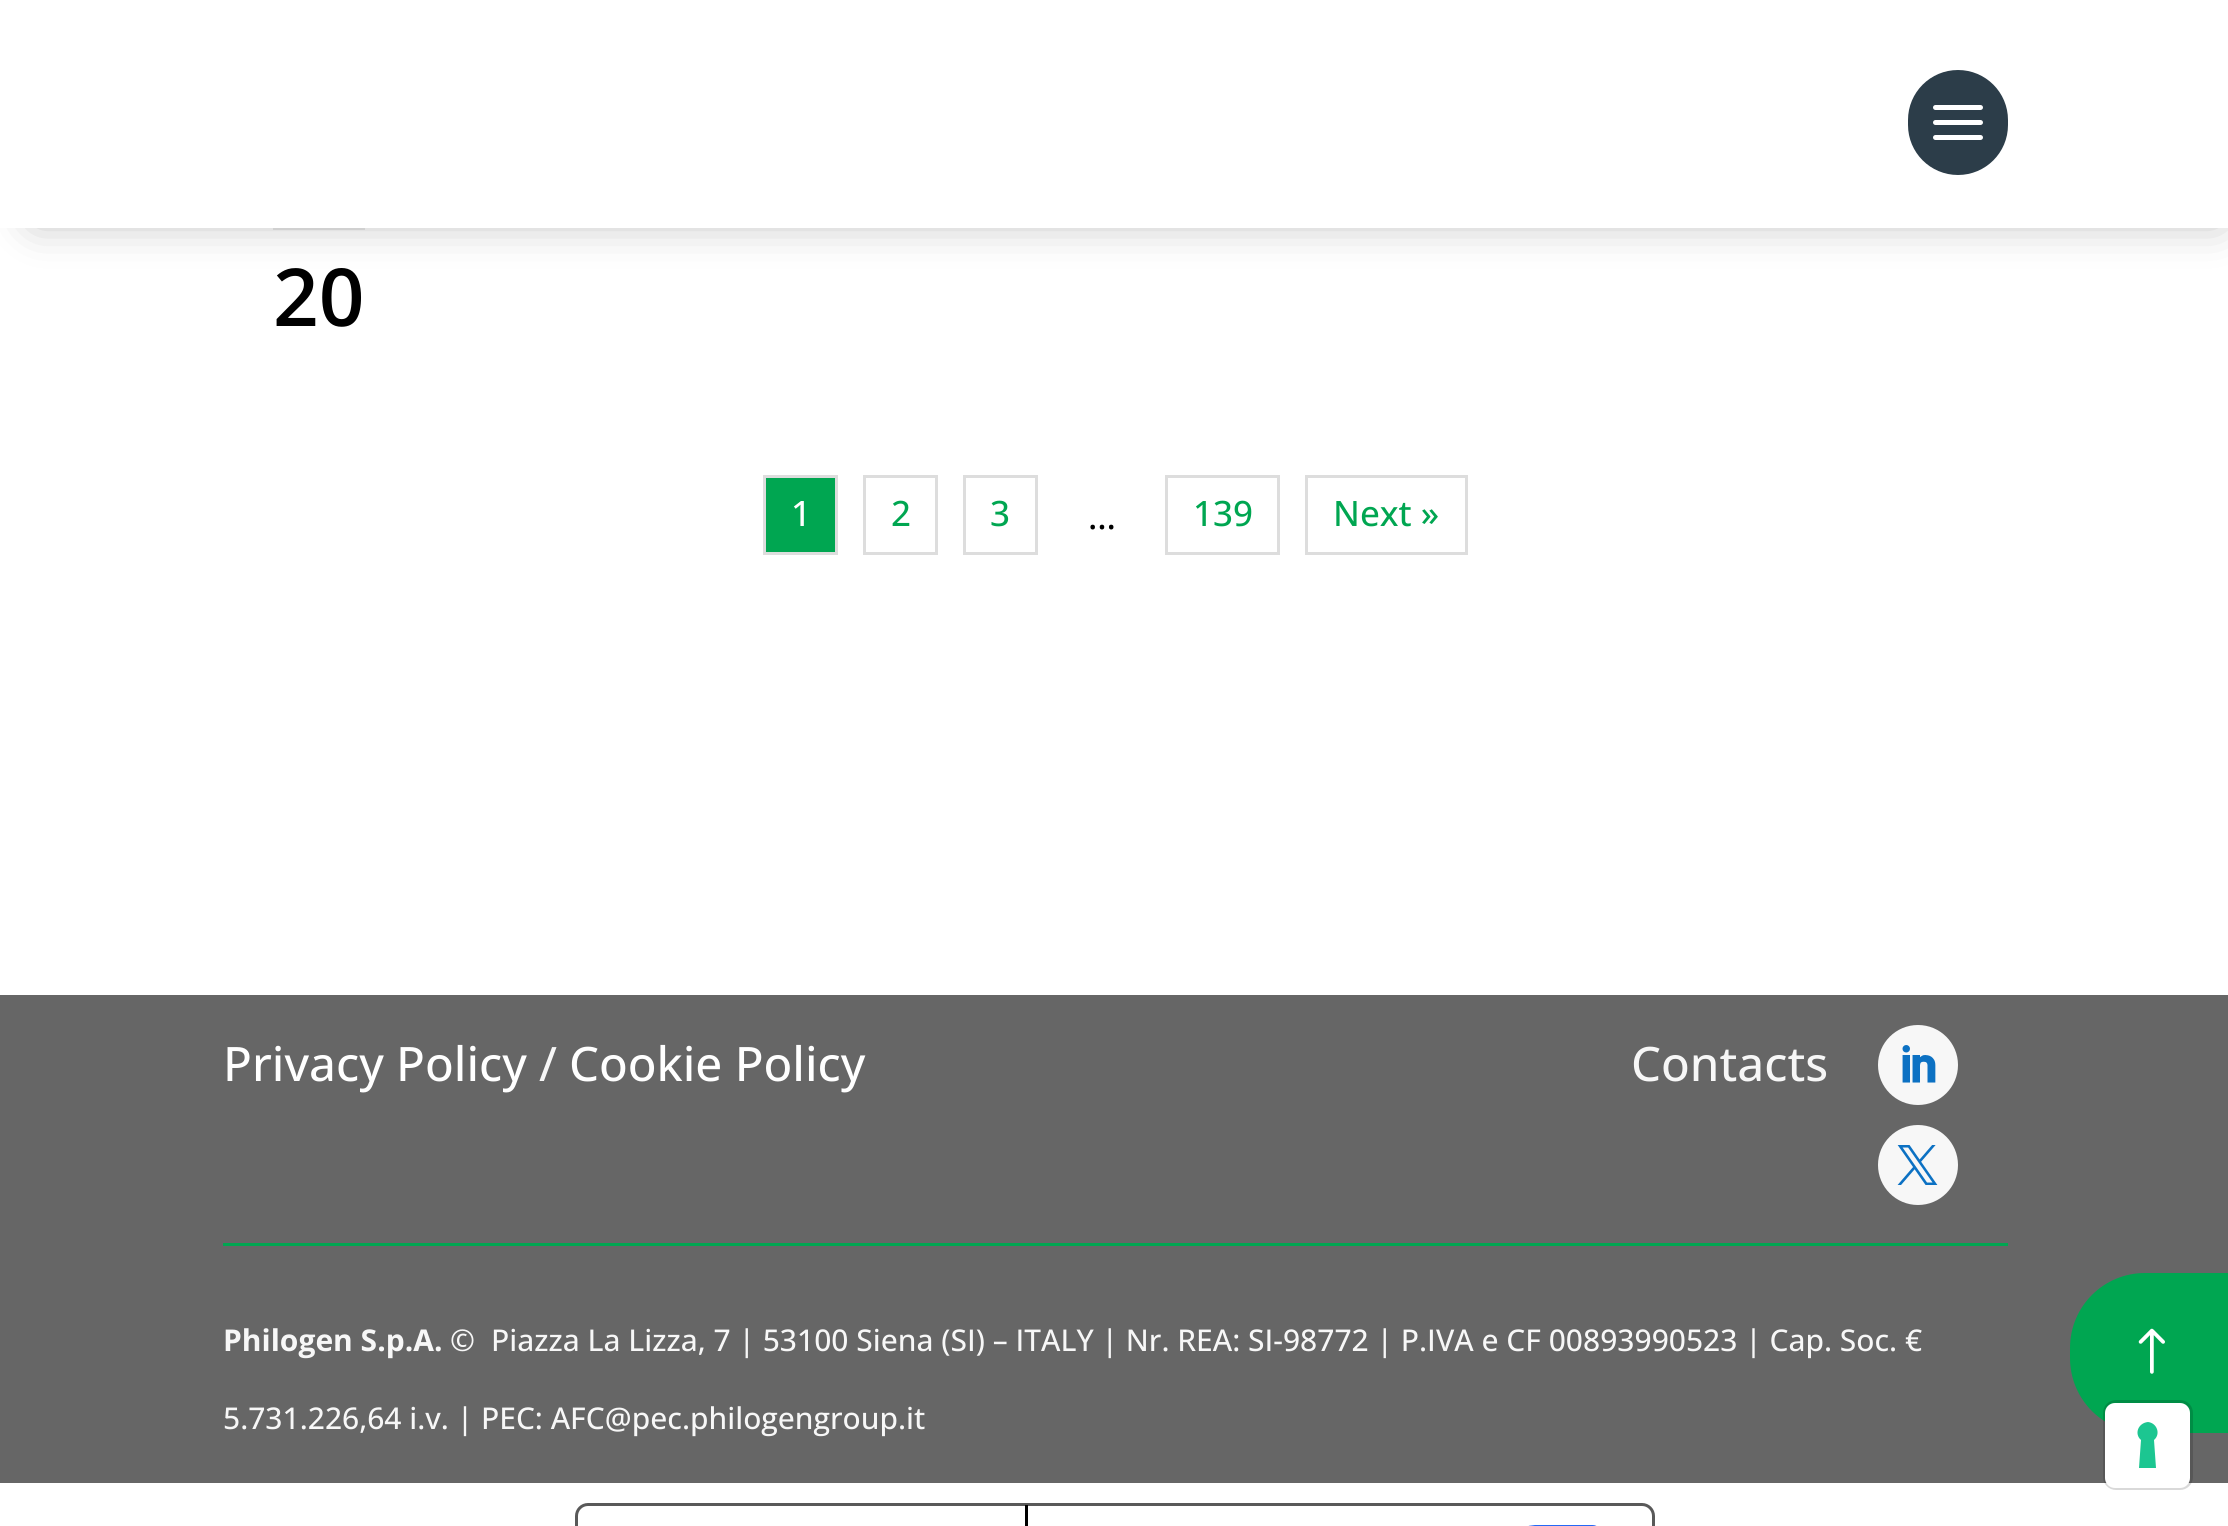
#include <cairo.h>
#include <math.h>
#include <stddef.h>

typedef struct { double x, y; const char *s; } line_t;

static void ink(cairo_t *ctx, unsigned color) {
    cairo_set_source_rgb(ctx, (color >> 16) / 255.0, (color >> 8 & 255) / 255.0, (color & 255) / 255.0);
}

static void round_path(cairo_t *ctx, double x, double y, double w, double h, double r) {
    cairo_new_sub_path(ctx);
    cairo_arc(ctx, x + w - r, y + h - r, r, 0, M_PI / 2);
    cairo_arc(ctx, x + r, y + h - r, r, M_PI / 2, M_PI);
    cairo_arc(ctx, x + r, y + r, r, M_PI, 1.5 * M_PI);
    cairo_arc(ctx, x + w - r, y + r, r, 1.5 * M_PI, 2 * M_PI);
    cairo_close_path(ctx);
}

static void blur_box(cairo_t *ctx, double x, double y, double w, double h, double r, double blur, double alpha) {
    cairo_push_group_with_content(ctx, CAIRO_CONTENT_ALPHA);
    cairo_set_operator(ctx, CAIRO_OPERATOR_SOURCE);
    for (int i = 15; i >= -15 && fmin(w, h) + blur * i / 3 > 0; i -= 2) {
        double e = blur * i / 6;
        cairo_set_source_rgba(ctx, 0, 0, 0, alpha * erfc((i - 1) / 8.5) / 2);
        round_path(ctx, x - e, y - e, w + 2 * e, h + 2 * e, fmax(0, fmin(r + e + blur * .6, fmin(w, h) / 2 + e)));
        cairo_fill(ctx);
    }
    cairo_pattern_t *soft = cairo_pop_group(ctx);
    cairo_mask(ctx, soft);
    cairo_pattern_destroy(soft);
}

static void paste(cairo_t *ctx, const char *path, double x, double y, double w, double h) {
    cairo_surface_t *image = cairo_image_surface_create_from_png(path);
    cairo_save(ctx);
    cairo_set_source_surface(ctx, image, x, y);
    cairo_rectangle(ctx, x, y, w, h);
    cairo_fill(ctx);
    cairo_restore(ctx);
    cairo_surface_destroy(image);
}

int main(void) {
    cairo_surface_t *surface = cairo_image_surface_create(CAIRO_FORMAT_RGB24, 2228, 1526);
    cairo_t *ctx = cairo_create(surface);
    cairo_font_options_t *options = cairo_font_options_create();
    cairo_font_options_set_hint_metrics(options, CAIRO_HINT_METRICS_OFF);
    cairo_font_options_set_hint_style(options, CAIRO_HINT_STYLE_NONE);
    cairo_set_font_options(ctx, options);
    cairo_set_miter_limit(ctx, 4);
    ink(ctx, 0xFFFFFF);
    cairo_paint(ctx);
    ink(ctx, 0xEAEAEA);
    cairo_rectangle(ctx, 273, 228, 92, 2);
    cairo_fill(ctx);
    ink(ctx, 0x000000);
    blur_box(ctx, 35, 38, 2185, 182, 0, 22.5, 0.3);
    ink(ctx, 0xFFFFFF);
    cairo_rectangle(ctx, 0, 0, 2228, 228);
    cairo_fill(ctx);
    ink(ctx, 0x2C3D49);
    round_path(ctx, 1908, 70, 100, 105, 50);
    cairo_fill(ctx);
    ink(ctx, 0xFFFFFF);
    round_path(ctx, 1933, 105, 50, 5, 2.5);
    cairo_fill(ctx);
    round_path(ctx, 1933, 120, 50, 5, 2.5);
    cairo_fill(ctx);
    round_path(ctx, 1933, 135, 50, 5, 2.5);
    cairo_fill(ctx);
    cairo_select_font_face(ctx, "Open Sans SemiBold", CAIRO_FONT_SLANT_NORMAL, CAIRO_FONT_WEIGHT_NORMAL);
    cairo_set_font_size(ctx, 80);
    ink(ctx, 0x000000);
    cairo_move_to(ctx, 273, 326);
    cairo_show_text(ctx, "20");
    ink(ctx, 0x00A651);
    cairo_rectangle(ctx, 764.5, 476.5, 72, 77);
    cairo_fill_preserve(ctx);
    ink(ctx, 0xDDDDDD);
    cairo_set_line_width(ctx, 3);
    cairo_stroke(ctx);
    cairo_select_font_face(ctx, "Open Sans Medium", CAIRO_FONT_SLANT_NORMAL, CAIRO_FONT_WEIGHT_NORMAL);
    cairo_set_font_size(ctx, 35);
    ink(ctx, 0xFFFFFF);
    cairo_move_to(ctx, 791, 526);
    cairo_show_text(ctx, "1");
    cairo_rectangle(ctx, 864.5, 476.5, 72, 77);
    ink(ctx, 0xDDDDDD);
    cairo_stroke(ctx);
    ink(ctx, 0x00A651);
    cairo_move_to(ctx, 891, 526);
    cairo_show_text(ctx, "2");
    cairo_rectangle(ctx, 964.5, 476.5, 72, 77);
    ink(ctx, 0xDDDDDD);
    cairo_stroke(ctx);
    ink(ctx, 0x00A651);
    cairo_move_to(ctx, 990, 526);
    cairo_show_text(ctx, "3");
    ink(ctx, 0x000000);
    cairo_move_to(ctx, 1088, 529);
    cairo_show_text(ctx, "…");
    cairo_rectangle(ctx, 1166.5, 476.5, 112, 77);
    ink(ctx, 0xDDDDDD);
    cairo_stroke(ctx);
    ink(ctx, 0x00A651);
    cairo_move_to(ctx, 1193, 526);
    cairo_show_text(ctx, "139");
    cairo_rectangle(ctx, 1306.5, 476.5, 160, 77);
    ink(ctx, 0xDDDDDD);
    cairo_stroke(ctx);
    ink(ctx, 0x00A651);
    cairo_move_to(ctx, 1333, 526);
    cairo_show_text(ctx, "Next »");
    ink(ctx, 0x666666);
    cairo_rectangle(ctx, 0, 995, 2228, 488);
    cairo_fill(ctx);
    cairo_set_font_size(ctx, 47.5);
    ink(ctx, 0xFFFFFF);
    cairo_move_to(ctx, 223, 1081);
    cairo_show_text(ctx, "Privacy Policy");
    ink(ctx, 0xF7F7F7);
    cairo_move_to(ctx, 539, 1081);
    cairo_show_text(ctx, "/");
    ink(ctx, 0xFFFFFF);
    cairo_move_to(ctx, 569, 1081);
    cairo_show_text(ctx, "Cookie Policy");
    ink(ctx, 0xF7F7F7);
    cairo_move_to(ctx, 1631, 1081);
    cairo_show_text(ctx, "Contacts");
    cairo_new_path(ctx);
    cairo_arc(ctx, 1918, 1065, 40, 0, 2 * M_PI);
    cairo_fill(ctx);
    paste(ctx, "media/1.png", 1902, 1045, 34, 38);
    cairo_arc(ctx, 1918, 1165, 40, 0, 2 * M_PI);
    cairo_fill(ctx);
    paste(ctx, "media/2.png", 1897, 1145, 41, 40);
    ink(ctx, 0x00A651);
    cairo_rectangle(ctx, 223, 1243, 1785, 3);
    cairo_fill(ctx);
    cairo_select_font_face(ctx, "Open Sans", CAIRO_FONT_SLANT_NORMAL, CAIRO_FONT_WEIGHT_BOLD);
    cairo_set_font_size(ctx, 30);
    ink(ctx, 0xF7F7F7);
    cairo_move_to(ctx, 223, 1351);
    cairo_show_text(ctx, "Philogen S.p.A.");
    cairo_select_font_face(ctx, "Open Sans Medium", CAIRO_FONT_SLANT_NORMAL, CAIRO_FONT_WEIGHT_NORMAL);
    {
        static const line_t items[] = {
            {450, 1351, "©"},
            {491, 1351, "Piazza La Lizza, 7 | 53100 Siena (SI) – ITALY | Nr. REA: SI-98772 | P.IVA e CF 00893990523 | Cap. Soc. €"},
            {223, 1429, "5.731.226,64 i.v. | PEC: AFC@pec.philogengroup.it"},
        };
        for (size_t i = 0; i < sizeof items / sizeof *items; i++) {
            cairo_move_to(ctx, items[i].x, items[i].y);
            cairo_show_text(ctx, items[i].s);
        }
    }
    ink(ctx, 0x00A651);
    cairo_new_path(ctx);
    cairo_move_to(ctx, 2145, 1273);
    cairo_line_to(ctx, 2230, 1273);
    cairo_line_to(ctx, 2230, 1433);
    cairo_line_to(ctx, 2145, 1433);
    cairo_curve_to(ctx, 2103.5, 1433, 2070, 1399.5, 2070, 1358);
    cairo_line_to(ctx, 2070, 1348);
    cairo_curve_to(ctx, 2070, 1306.5, 2103.5, 1273, 2145, 1273);
    cairo_close_path(ctx);
    cairo_fill(ctx);
    paste(ctx, "media/3.png", 2138, 1328, 27, 46);
    round_path(ctx, 2104.5, 1401.5, 87, 87, 11.5);
    cairo_set_source_rgba(ctx, 0, 0, 0, 0.15);
    cairo_stroke(ctx);
    ink(ctx, 0xFFFFFF);
    round_path(ctx, 2105, 1403, 85, 85, 10);
    cairo_fill(ctx);
    ink(ctx, 0x1CC691);
    cairo_set_fill_rule(ctx, CAIRO_FILL_RULE_EVEN_ODD);
    cairo_new_path(ctx);
    cairo_move_to(ctx, 2148, 1422);
    cairo_curve_to(ctx, 2157, 1423, 2161, 1434, 2154, 1440);
    cairo_line_to(ctx, 2156, 1468);
    cairo_line_to(ctx, 2139, 1468);
    cairo_line_to(ctx, 2141, 1440);
    cairo_curve_to(ctx, 2134, 1434, 2138, 1423, 2148, 1422);
    cairo_close_path(ctx);
    cairo_fill(ctx);
    round_path(ctx, 576.5, 1504.5, 1077, 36, 11.5);
    ink(ctx, 0x595959);
    cairo_stroke(ctx);
    ink(ctx, 0x000000);
    cairo_rectangle(ctx, 1025, 1505, 3, 21);
    cairo_fill(ctx);
    paste(ctx, "media/4.png", 1528, 1525, 69, 1);
    cairo_surface_write_to_png(surface, "image.png");
    cairo_font_options_destroy(options);
    cairo_destroy(ctx);
    cairo_surface_destroy(surface);
    return 0;
}
